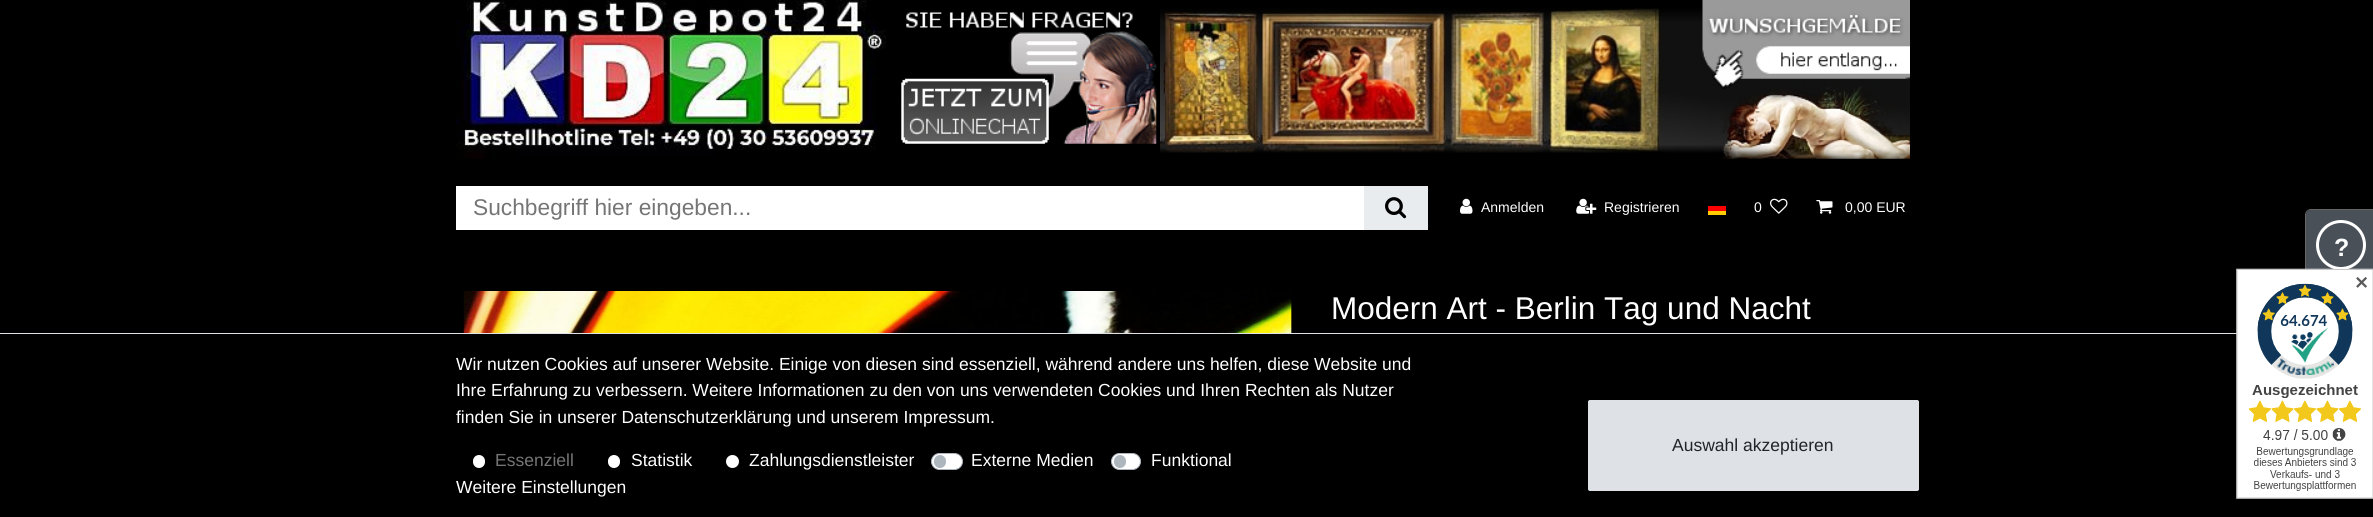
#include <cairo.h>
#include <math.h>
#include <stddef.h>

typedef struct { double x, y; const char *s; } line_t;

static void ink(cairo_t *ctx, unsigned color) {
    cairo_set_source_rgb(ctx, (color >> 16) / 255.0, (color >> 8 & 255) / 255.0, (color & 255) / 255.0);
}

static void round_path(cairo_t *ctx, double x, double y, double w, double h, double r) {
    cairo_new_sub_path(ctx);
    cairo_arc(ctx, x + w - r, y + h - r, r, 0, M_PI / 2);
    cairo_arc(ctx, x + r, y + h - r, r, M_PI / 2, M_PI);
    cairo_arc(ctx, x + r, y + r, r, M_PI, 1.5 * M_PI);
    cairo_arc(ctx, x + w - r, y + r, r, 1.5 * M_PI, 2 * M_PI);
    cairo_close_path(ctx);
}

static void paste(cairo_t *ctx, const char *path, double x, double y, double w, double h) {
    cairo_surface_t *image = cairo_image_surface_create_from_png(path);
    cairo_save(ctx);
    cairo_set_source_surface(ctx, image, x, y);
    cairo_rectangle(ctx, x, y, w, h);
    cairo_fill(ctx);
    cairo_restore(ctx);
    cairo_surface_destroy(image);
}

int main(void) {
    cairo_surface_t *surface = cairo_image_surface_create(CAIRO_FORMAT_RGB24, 2373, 517);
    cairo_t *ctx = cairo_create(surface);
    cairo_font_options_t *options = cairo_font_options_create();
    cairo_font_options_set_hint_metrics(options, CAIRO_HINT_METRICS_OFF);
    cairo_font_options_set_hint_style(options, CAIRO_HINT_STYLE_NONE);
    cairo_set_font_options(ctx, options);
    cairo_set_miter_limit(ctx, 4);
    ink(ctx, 0x000000);
    cairo_paint(ctx);
    paste(ctx, "media/1.png", 456, 0, 430, 159);
    paste(ctx, "media/2.png", 901, 11, 256, 133);
    paste(ctx, "media/3.png", 1160, 0, 750, 159);
    ink(ctx, 0xFFFFFF);
    cairo_rectangle(ctx, 456, 186, 908, 44);
    cairo_fill(ctx);
    cairo_select_font_face(ctx, "Liberation Sans", CAIRO_FONT_SLANT_NORMAL, CAIRO_FONT_WEIGHT_NORMAL);
    cairo_set_font_size(ctx, 22.75);
    ink(ctx, 0x757575);
    cairo_move_to(ctx, 473, 215);
    cairo_show_text(ctx, "Suchbegriff hier eingeben...");
    ink(ctx, 0xE9ECEF);
    cairo_rectangle(ctx, 1364, 186, 64, 44);
    cairo_fill(ctx);
    paste(ctx, "media/4.png", 1385, 197, 22, 22);
    paste(ctx, "media/5.png", 1460, 198, 13, 16);
    cairo_set_font_size(ctx, 14);
    ink(ctx, 0xFFFFFF);
    cairo_move_to(ctx, 1481, 212);
    cairo_show_text(ctx, "Anmelden");
    paste(ctx, "media/6.png", 1576, 198, 21, 16);
    cairo_move_to(ctx, 1604, 212);
    cairo_show_text(ctx, "Registrieren");
    ink(ctx, 0xFFCC00);
    cairo_rectangle(ctx, 1708, 211, 18, 4);
    cairo_fill(ctx);
    ink(ctx, 0xFF0000);
    cairo_rectangle(ctx, 1708, 206, 18, 5);
    cairo_fill(ctx);
    ink(ctx, 0xFFFFFF);
    cairo_move_to(ctx, 1754, 212);
    cairo_show_text(ctx, "0");
    paste(ctx, "media/7.png", 1770, 198, 18, 16);
    paste(ctx, "media/8.png", 1816, 200, 17, 14);
    cairo_move_to(ctx, 1845, 212);
    cairo_show_text(ctx, "0,00 EUR");
    cairo_new_path(ctx);
    cairo_move_to(ctx, 2311, 209.5);
    cairo_line_to(ctx, 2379.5, 209.5);
    cairo_line_to(ctx, 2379.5, 277.5);
    cairo_line_to(ctx, 2311, 277.5);
    cairo_curve_to(ctx, 2308, 277.5, 2305.5, 275, 2305.5, 272);
    cairo_line_to(ctx, 2305.5, 215);
    cairo_curve_to(ctx, 2305.5, 212, 2308, 209.5, 2311, 209.5);
    cairo_close_path(ctx);
    ink(ctx, 0x666666);
    cairo_set_line_width(ctx, 1);
    cairo_stroke(ctx);
    ink(ctx, 0x495058);
    cairo_new_path(ctx);
    cairo_move_to(ctx, 2311, 210);
    cairo_line_to(ctx, 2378, 210);
    cairo_line_to(ctx, 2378, 276);
    cairo_line_to(ctx, 2311, 276);
    cairo_curve_to(ctx, 2308, 276, 2306, 274, 2306, 271);
    cairo_line_to(ctx, 2306, 215);
    cairo_curve_to(ctx, 2306, 212, 2308, 210, 2311, 210);
    cairo_close_path(ctx);
    cairo_fill(ctx);
    cairo_arc(ctx, 2341, 245, 23.5, 0, 2 * M_PI);
    ink(ctx, 0xFFFFFF);
    cairo_set_line_width(ctx, 3);
    cairo_stroke(ctx);
    cairo_select_font_face(ctx, "Liberation Sans", CAIRO_FONT_SLANT_NORMAL, CAIRO_FONT_WEIGHT_BOLD);
    cairo_set_font_size(ctx, 25);
    cairo_move_to(ctx, 2334, 256);
    cairo_show_text(ctx, "?");
    paste(ctx, "media/9.png", 463, 291, 829, 42);
    cairo_select_font_face(ctx, "Liberation Sans", CAIRO_FONT_SLANT_NORMAL, CAIRO_FONT_WEIGHT_NORMAL);
    cairo_set_font_size(ctx, 31.5);
    cairo_move_to(ctx, 1331, 319);
    cairo_show_text(ctx, "Modern Art - Berlin Tag und Nacht");
    ink(ctx, 0xDEE2E6);
    cairo_rectangle(ctx, 0, 333, 2237, 1);
    cairo_fill(ctx);
    cairo_set_font_size(ctx, 17.5);
    ink(ctx, 0xFFFFFF);
    {
        static const line_t items[] = {
            {456, 370, "Wir nutzen Cookies auf unserer Website. Einige von diesen sind essenziell, während andere uns helfen, diese Website und"},
            {456, 396, "Ihre Erfahrung zu verbessern. Weitere Informationen zu den von uns verwendeten Cookies und Ihren Rechten als Nutzer"},
            {456, 423, "finden Sie in unserer Datenschutzerklärung und unserem Impressum."},
        };
        for (size_t i = 0; i < sizeof items / sizeof *items; i++) {
            cairo_move_to(ctx, items[i].x, items[i].y);
            cairo_show_text(ctx, items[i].s);
        }
    }
    round_path(ctx, 473, 455, 12, 13, 6);
    cairo_fill(ctx);
    ink(ctx, 0x757575);
    cairo_move_to(ctx, 495, 466);
    cairo_show_text(ctx, "Essenziell");
    ink(ctx, 0xFFFFFF);
    round_path(ctx, 608, 455, 12, 13, 6);
    cairo_fill(ctx);
    cairo_move_to(ctx, 631, 466);
    cairo_show_text(ctx, "Statistik");
    cairo_new_path(ctx);
    cairo_arc(ctx, 732.5, 461.5, 6.5, 0, 2 * M_PI);
    cairo_fill(ctx);
    cairo_move_to(ctx, 749, 466);
    cairo_show_text(ctx, "Zahlungsdienstleister");
    round_path(ctx, 931.5, 453.5, 31, 16, 8);
    cairo_fill_preserve(ctx);
    ink(ctx, 0xADB5BD);
    cairo_set_line_width(ctx, 1);
    cairo_stroke(ctx);
    ink(ctx, 0xFFFFFF);
    cairo_move_to(ctx, 971, 466);
    cairo_show_text(ctx, "Externe Medien");
    ink(ctx, 0xADB5BD);
    round_path(ctx, 934, 455, 12, 13, 6);
    cairo_fill(ctx);
    ink(ctx, 0xFFFFFF);
    round_path(ctx, 1111.5, 453.5, 29, 16, 8);
    cairo_fill_preserve(ctx);
    ink(ctx, 0xADB5BD);
    cairo_stroke(ctx);
    ink(ctx, 0xFFFFFF);
    cairo_move_to(ctx, 1151, 466);
    cairo_show_text(ctx, "Funktional");
    ink(ctx, 0xADB5BD);
    round_path(ctx, 1114, 455, 12, 13, 6);
    cairo_fill(ctx);
    ink(ctx, 0xFFFFFF);
    cairo_move_to(ctx, 456, 493);
    cairo_show_text(ctx, "Weitere Einstellungen");
    ink(ctx, 0xDEE2E6);
    round_path(ctx, 1588.5, 400.5, 330, 90, 1.5);
    cairo_fill_preserve(ctx);
    cairo_stroke(ctx);
    ink(ctx, 0x212529);
    cairo_move_to(ctx, 1672, 451);
    cairo_show_text(ctx, "Auswahl akzeptieren");
    paste(ctx, "media/10.png", 2236, 268, 137, 231);
    cairo_select_font_face(ctx, "DejaVu Sans", CAIRO_FONT_SLANT_NORMAL, CAIRO_FONT_WEIGHT_BOLD);
    ink(ctx, 0x595959);
    cairo_move_to(ctx, 2354, 289);
    cairo_show_text(ctx, "✕");
    cairo_surface_write_to_png(surface, "image.png");
    cairo_font_options_destroy(options);
    cairo_destroy(ctx);
    cairo_surface_destroy(surface);
    return 0;
}
